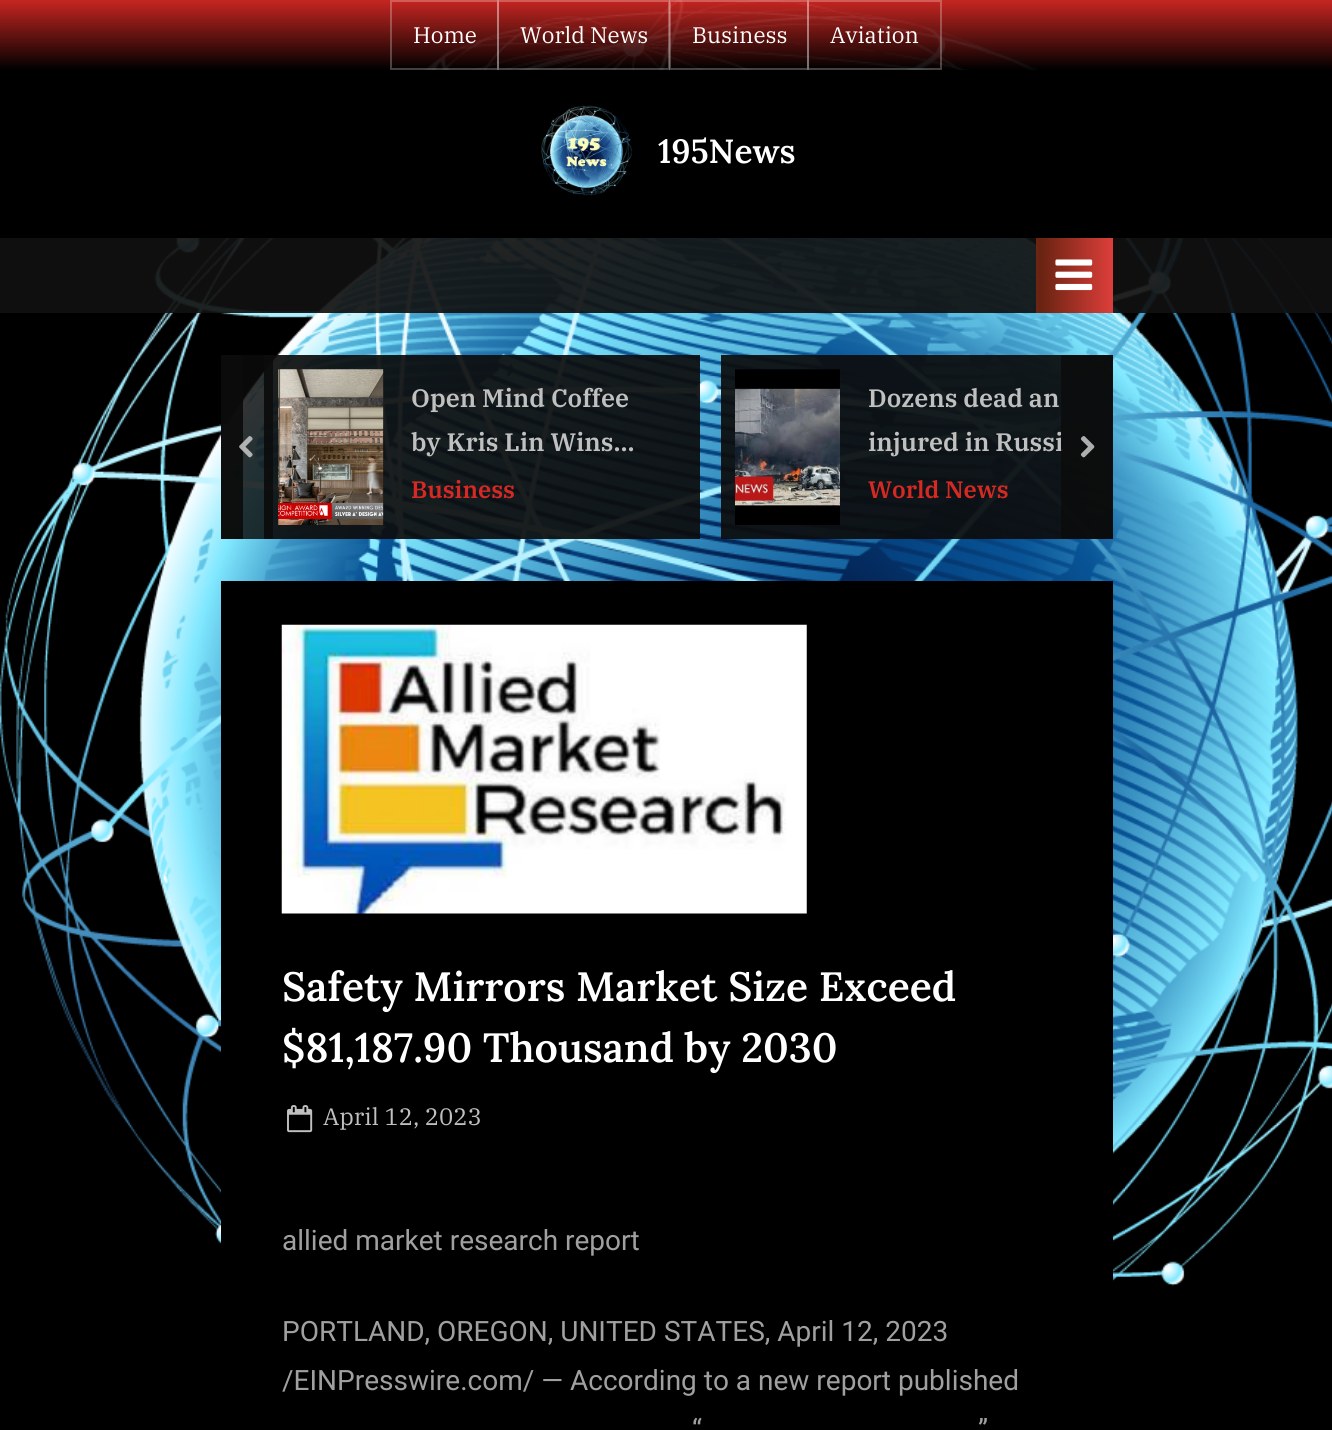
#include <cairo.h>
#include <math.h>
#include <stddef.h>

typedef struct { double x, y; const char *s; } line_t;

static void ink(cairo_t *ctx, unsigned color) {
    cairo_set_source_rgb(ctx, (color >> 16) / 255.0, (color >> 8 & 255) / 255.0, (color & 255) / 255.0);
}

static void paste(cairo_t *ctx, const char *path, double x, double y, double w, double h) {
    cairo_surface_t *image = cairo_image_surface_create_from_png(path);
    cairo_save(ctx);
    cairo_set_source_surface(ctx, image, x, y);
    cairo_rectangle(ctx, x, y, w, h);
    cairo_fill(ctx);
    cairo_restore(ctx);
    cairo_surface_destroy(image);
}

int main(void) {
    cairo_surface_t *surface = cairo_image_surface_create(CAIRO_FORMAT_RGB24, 1332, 1430);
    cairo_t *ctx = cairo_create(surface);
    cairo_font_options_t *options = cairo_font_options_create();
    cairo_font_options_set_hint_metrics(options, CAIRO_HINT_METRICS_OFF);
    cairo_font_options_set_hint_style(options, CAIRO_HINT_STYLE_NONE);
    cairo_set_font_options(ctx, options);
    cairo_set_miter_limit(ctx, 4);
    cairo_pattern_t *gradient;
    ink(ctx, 0x000000);
    cairo_paint(ctx);
    paste(ctx, "media/1.png", 0, 0, 1332, 1286);
    gradient = cairo_pattern_create_linear(667, 70, 667, 0);
    cairo_pattern_add_color_stop_rgba(gradient, 0, 0, 0, 0, 0.92);
    cairo_pattern_add_color_stop_rgba(gradient, 1, 0.843, 0.161, 0.141, 0.92);
    cairo_set_source(ctx, gradient);
    cairo_pattern_destroy(gradient);
    cairo_rectangle(ctx, 0, 0, 1332, 70);
    cairo_fill(ctx);
    cairo_rectangle(ctx, 391, 1, 107, 68);
    cairo_set_source_rgba(ctx, 1, 1, 1, 0.25);
    cairo_stroke(ctx);
    cairo_select_font_face(ctx, "IBM Plex Serif", CAIRO_FONT_SLANT_NORMAL, CAIRO_FONT_WEIGHT_NORMAL);
    cairo_set_font_size(ctx, 22.5);
    ink(ctx, 0xFFFFFF);
    cairo_move_to(ctx, 413, 43);
    cairo_show_text(ctx, "Home");
    cairo_rectangle(ctx, 498, 1, 171, 68);
    cairo_set_source_rgba(ctx, 1, 1, 1, 0.25);
    cairo_stroke(ctx);
    ink(ctx, 0xFFFFFF);
    cairo_move_to(ctx, 520, 43);
    cairo_show_text(ctx, "World News");
    cairo_rectangle(ctx, 670, 1, 138, 68);
    cairo_set_source_rgba(ctx, 1, 1, 1, 0.25);
    cairo_stroke(ctx);
    ink(ctx, 0xFFFFFF);
    cairo_move_to(ctx, 692, 43);
    cairo_show_text(ctx, "Business");
    cairo_rectangle(ctx, 808, 1, 133, 68);
    cairo_set_source_rgba(ctx, 1, 1, 1, 0.25);
    cairo_stroke(ctx);
    ink(ctx, 0xFFFFFF);
    cairo_move_to(ctx, 830, 43);
    cairo_show_text(ctx, "Aviation");
    ink(ctx, 0x000000);
    cairo_rectangle(ctx, 176, 70, 1085, 168);
    cairo_fill(ctx);
    paste(ctx, "media/2.png", 541, 105, 92, 91);
    cairo_select_font_face(ctx, "Lora SemiBold", CAIRO_FONT_SLANT_NORMAL, CAIRO_FONT_WEIGHT_NORMAL);
    cairo_set_font_size(ctx, 33.5);
    ink(ctx, 0xFFFFFF);
    cairo_move_to(ctx, 658, 163);
    cairo_show_text(ctx, "195News");
    cairo_set_source_rgba(ctx, 0.067, 0.067, 0.067, 0.92);
    cairo_rectangle(ctx, 0, 238, 1332, 75);
    cairo_fill(ctx);
    gradient = cairo_pattern_create_linear(900, 276, 1040, 276);
    cairo_pattern_add_color_stop_rgba(gradient, 0, 0.408, 0.137, 0.067, 1);
    cairo_pattern_add_color_stop_rgba(gradient, 0.51, 0.859, 0.243, 0.227, 1);
    cairo_pattern_add_color_stop_rgba(gradient, 1, 0.408, 0.137, 0.067, 1);
    cairo_set_source(ctx, gradient);
    cairo_pattern_destroy(gradient);
    cairo_rectangle(ctx, 1036, 238, 4, 75);
    cairo_fill(ctx);
    gradient = cairo_pattern_create_linear(1040, 276, 1180, 276);
    cairo_pattern_add_color_stop_rgba(gradient, 0, 0.408, 0.137, 0.067, 1);
    cairo_pattern_add_color_stop_rgba(gradient, 0.51, 0.859, 0.243, 0.227, 1);
    cairo_pattern_add_color_stop_rgba(gradient, 1, 0.408, 0.137, 0.067, 1);
    cairo_set_source(ctx, gradient);
    cairo_pattern_destroy(gradient);
    cairo_rectangle(ctx, 1040, 238, 73, 75);
    cairo_fill(ctx);
    paste(ctx, "media/3.png", 1055, 259, 38, 32);
    cairo_set_source_rgba(ctx, 0.047, 0.047, 0.047, 0.92);
    cairo_rectangle(ctx, 221, 355, 22, 184);
    cairo_fill(ctx);
    cairo_rectangle(ctx, 264, 355, 436, 184);
    cairo_fill(ctx);
    cairo_set_source_rgba(ctx, 0.047, 0.047, 0.047, 0.83);
    cairo_rectangle(ctx, 221, 355, 52, 184);
    cairo_fill(ctx);
    paste(ctx, "media/4.png", 239, 436, 14, 22);
    cairo_set_source_rgba(ctx, 0.047, 0.047, 0.047, 0.92);
    cairo_rectangle(ctx, 721, 355, 392, 184);
    cairo_fill(ctx);
    cairo_select_font_face(ctx, "IBM Plex Serif SemiBold", CAIRO_FONT_SLANT_NORMAL, CAIRO_FONT_WEIGHT_NORMAL);
    cairo_set_font_size(ctx, 25.25);
    ink(ctx, 0xC0C0C0);
    cairo_move_to(ctx, 868, 451);
    cairo_show_text(ctx, "injured in Russi");
    cairo_set_source_rgba(ctx, 0.047, 0.047, 0.047, 0.83);
    cairo_rectangle(ctx, 1061, 355, 52, 184);
    cairo_fill(ctx);
    paste(ctx, "media/5.png", 1080, 436, 15, 22);
    paste(ctx, "media/6.png", 278, 369, 106, 156);
    ink(ctx, 0xC0C0C0);
    cairo_move_to(ctx, 411, 407);
    cairo_show_text(ctx, "Open Mind Coffee");
    cairo_move_to(ctx, 411, 451);
    cairo_show_text(ctx, "by Kris Lin Wins…");
    cairo_set_font_size(ctx, 23.75);
    ink(ctx, 0xD72924);
    cairo_move_to(ctx, 411, 498);
    cairo_show_text(ctx, "Business");
    paste(ctx, "media/7.png", 735, 369, 105, 156);
    cairo_set_font_size(ctx, 25.25);
    ink(ctx, 0xC0C0C0);
    cairo_move_to(ctx, 868, 407);
    cairo_show_text(ctx, "Dozens dead an");
    cairo_set_font_size(ctx, 23.75);
    ink(ctx, 0xD72924);
    cairo_move_to(ctx, 868, 498);
    cairo_show_text(ctx, "World News");
    ink(ctx, 0x000000);
    cairo_rectangle(ctx, 221, 581, 892, 705);
    cairo_fill(ctx);
    paste(ctx, "media/8.png", 281, 624, 526, 290);
    cairo_select_font_face(ctx, "Lora SemiBold", CAIRO_FONT_SLANT_NORMAL, CAIRO_FONT_WEIGHT_NORMAL);
    cairo_set_font_size(ctx, 40.9);
    ink(ctx, 0xFFFFFF);
    cairo_move_to(ctx, 282, 1001);
    cairo_show_text(ctx, "Safety Mirrors Market Size Exceed");
    cairo_move_to(ctx, 282, 1062);
    cairo_show_text(ctx, "$81,187.90 Thousand by 2030");
    paste(ctx, "media/9.png", 287, 1105, 26, 28);
    cairo_select_font_face(ctx, "IBM Plex Serif", CAIRO_FONT_SLANT_NORMAL, CAIRO_FONT_WEIGHT_NORMAL);
    cairo_set_font_size(ctx, 23.75);
    ink(ctx, 0xC0C0C0);
    cairo_move_to(ctx, 323, 1125);
    cairo_show_text(ctx, "April 12, 2023");
    cairo_select_font_face(ctx, "Roboto", CAIRO_FONT_SLANT_NORMAL, CAIRO_FONT_WEIGHT_NORMAL);
    cairo_set_font_size(ctx, 28);
    ink(ctx, 0xA0A0A0);
    {
        static const line_t items[] = {
            {282, 1250, "allied market research report"},
            {282, 1341, "PORTLAND, OREGON, UNITED STATES, April 12, 2023"},
            {282, 1390, "/EINPresswire.com/ — According to a new report published"},
            {692, 1439, "“"},
            {978, 1439, "”"},
        };
        for (size_t i = 0; i < sizeof items / sizeof *items; i++) {
            cairo_move_to(ctx, items[i].x, items[i].y);
            cairo_show_text(ctx, items[i].s);
        }
    }
    cairo_surface_write_to_png(surface, "image.png");
    cairo_font_options_destroy(options);
    cairo_destroy(ctx);
    cairo_surface_destroy(surface);
    return 0;
}
